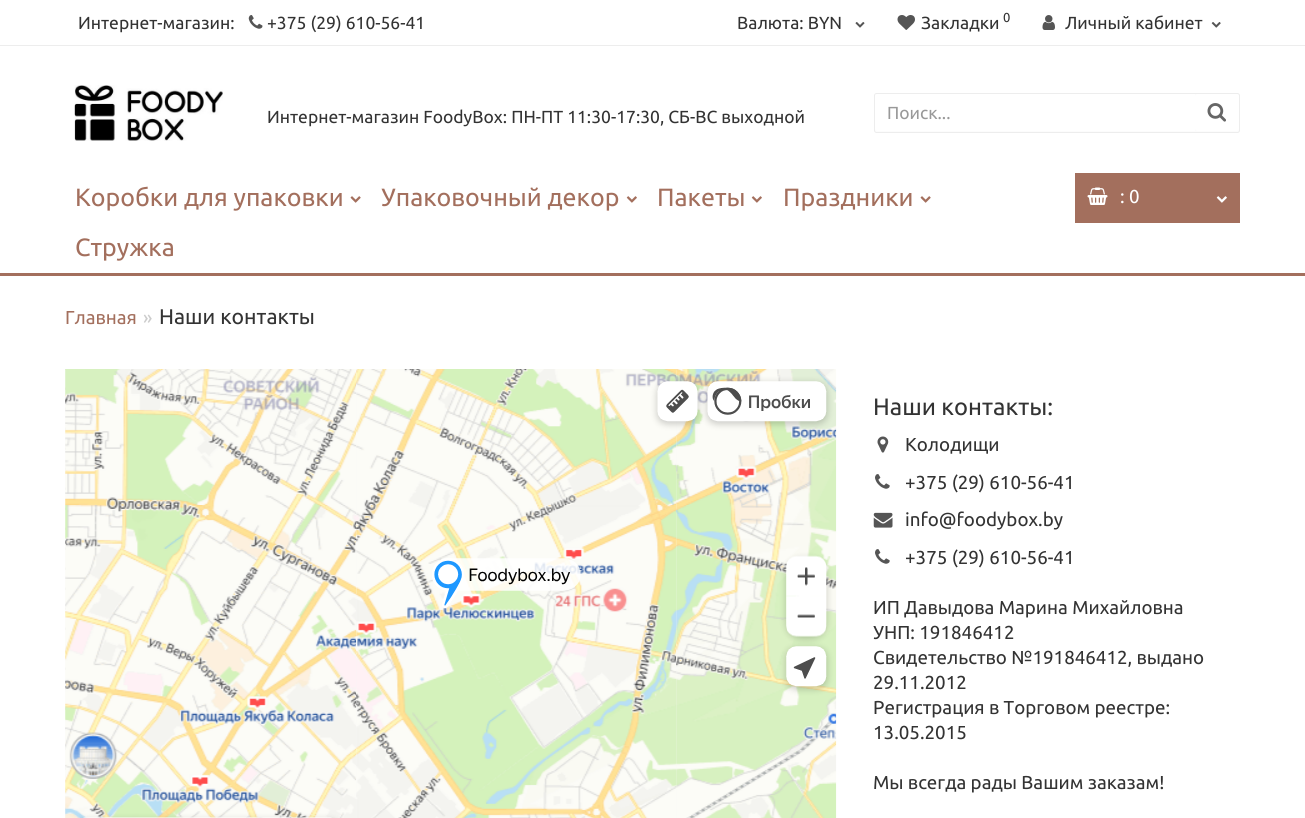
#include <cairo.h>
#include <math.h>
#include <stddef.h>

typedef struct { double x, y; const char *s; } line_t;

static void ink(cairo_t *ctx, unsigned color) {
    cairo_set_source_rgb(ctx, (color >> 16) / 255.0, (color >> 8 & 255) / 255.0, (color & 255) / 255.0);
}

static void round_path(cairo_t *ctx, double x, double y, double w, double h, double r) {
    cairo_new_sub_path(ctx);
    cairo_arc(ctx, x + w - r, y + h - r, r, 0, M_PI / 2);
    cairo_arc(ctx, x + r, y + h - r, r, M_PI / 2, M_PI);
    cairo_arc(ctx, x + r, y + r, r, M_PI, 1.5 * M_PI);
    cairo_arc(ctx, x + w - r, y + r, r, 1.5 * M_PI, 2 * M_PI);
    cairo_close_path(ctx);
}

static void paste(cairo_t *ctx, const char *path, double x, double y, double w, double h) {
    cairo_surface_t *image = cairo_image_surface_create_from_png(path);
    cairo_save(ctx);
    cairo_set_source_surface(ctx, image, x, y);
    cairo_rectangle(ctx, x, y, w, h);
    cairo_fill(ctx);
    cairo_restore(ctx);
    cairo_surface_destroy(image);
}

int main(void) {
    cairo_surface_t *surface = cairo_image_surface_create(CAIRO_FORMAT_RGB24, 1305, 818);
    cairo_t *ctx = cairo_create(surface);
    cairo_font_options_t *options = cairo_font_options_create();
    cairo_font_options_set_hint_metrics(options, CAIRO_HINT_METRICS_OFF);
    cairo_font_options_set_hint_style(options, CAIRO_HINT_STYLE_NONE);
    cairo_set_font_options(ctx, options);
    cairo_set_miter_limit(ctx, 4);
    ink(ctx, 0xFFFFFF);
    cairo_paint(ctx);
    ink(ctx, 0xEDEDED);
    cairo_rectangle(ctx, 0, 45, 1305, 1);
    cairo_fill(ctx);
    cairo_select_font_face(ctx, "Ubuntu", CAIRO_FONT_SLANT_NORMAL, CAIRO_FONT_WEIGHT_NORMAL);
    cairo_set_font_size(ctx, 17.5);
    ink(ctx, 0x333333);
    cairo_move_to(ctx, 78, 29);
    cairo_show_text(ctx, "Интернет-магазин:");
    paste(ctx, "media/1.png", 248, 15, 15, 14);
    cairo_move_to(ctx, 267, 29);
    cairo_show_text(ctx, "+375 (29) 610-56-41");
    cairo_move_to(ctx, 737, 29);
    cairo_show_text(ctx, "Валюта: BYN");
    paste(ctx, "media/2.png", 855, 22, 10, 6);
    paste(ctx, "media/3.png", 897, 15, 18, 15);
    cairo_move_to(ctx, 921, 29);
    cairo_show_text(ctx, "Закладки");
    cairo_set_font_size(ctx, 13);
    cairo_move_to(ctx, 1003, 22);
    cairo_show_text(ctx, "0");
    paste(ctx, "media/4.png", 1042, 15, 13, 15);
    cairo_set_font_size(ctx, 17.5);
    cairo_move_to(ctx, 1065, 29);
    cairo_show_text(ctx, "Личный кабинет");
    paste(ctx, "media/5.png", 1211, 22, 10, 6);
    paste(ctx, "media/6.png", 74, 85, 149, 56);
    cairo_move_to(ctx, 267, 123);
    cairo_show_text(ctx, "Интернет-магазин FoodyBox: ПН-ПТ 11:30-17:30, СБ-ВС выходной");
    ink(ctx, 0xFCFCFC);
    round_path(ctx, 874.5, 93.5, 365, 39, 2);
    cairo_fill_preserve(ctx);
    ink(ctx, 0xEDEDED);
    cairo_set_line_width(ctx, 1);
    cairo_stroke(ctx);
    ink(ctx, 0xFFFFFF);
    cairo_new_path(ctx);
    cairo_move_to(ctx, 877.5, 94);
    cairo_line_to(ctx, 1195, 94);
    cairo_line_to(ctx, 1195, 131);
    cairo_line_to(ctx, 877.5, 131);
    cairo_curve_to(ctx, 876, 131, 875, 130, 875, 128.5);
    cairo_line_to(ctx, 875, 96.5);
    cairo_curve_to(ctx, 875, 95, 876, 94, 877.5, 94);
    cairo_close_path(ctx);
    cairo_fill(ctx);
    ink(ctx, 0x999999);
    cairo_move_to(ctx, 887, 119);
    cairo_show_text(ctx, "Поиск...");
    ink(ctx, 0xFFFFFF);
    round_path(ctx, 1195, 94, 44, 37, 2.5);
    cairo_fill(ctx);
    paste(ctx, "media/7.png", 1207, 103, 19, 19);
    ink(ctx, 0xA36F5D);
    cairo_rectangle(ctx, 0, 273, 1305, 3);
    cairo_fill(ctx);
    cairo_set_font_size(ctx, 25);
    cairo_move_to(ctx, 75, 206);
    cairo_show_text(ctx, "Коробки для упаковки");
    paste(ctx, "media/8.png", 350, 196, 11, 7);
    cairo_move_to(ctx, 381, 206);
    cairo_show_text(ctx, "Упаковочный декор");
    paste(ctx, "media/9.png", 626, 196, 11, 7);
    cairo_move_to(ctx, 657, 206);
    cairo_show_text(ctx, "Пакеты");
    paste(ctx, "media/9.png", 751, 196, 11, 7);
    cairo_move_to(ctx, 783, 206);
    cairo_show_text(ctx, "Праздники");
    paste(ctx, "media/8.png", 920, 196, 11, 7);
    cairo_move_to(ctx, 75, 256);
    cairo_show_text(ctx, "Стружка");
    cairo_rectangle(ctx, 1075, 173, 165, 50);
    cairo_fill(ctx);
    paste(ctx, "media/10.png", 1087, 187, 21, 18);
    cairo_set_font_size(ctx, 18.75);
    ink(ctx, 0xFFFFFF);
    cairo_move_to(ctx, 1120, 203);
    cairo_show_text(ctx, ": 0");
    paste(ctx, "media/11.png", 1216, 196, 11, 7);
    ink(ctx, 0xA36F5D);
    cairo_move_to(ctx, 65, 324);
    cairo_show_text(ctx, "Главная");
    ink(ctx, 0xCCCCCC);
    cairo_move_to(ctx, 143, 324);
    cairo_show_text(ctx, "»");
    cairo_set_font_size(ctx, 21.25);
    ink(ctx, 0x333333);
    cairo_move_to(ctx, 159, 324);
    cairo_show_text(ctx, "Наши контакты");
    paste(ctx, "media/12.png", 65, 369, 772, 449);
    cairo_set_font_size(ctx, 23.75);
    cairo_move_to(ctx, 873, 415);
    cairo_show_text(ctx, "Наши контакты:");
    paste(ctx, "media/13.png", 877, 436, 12, 17);
    cairo_set_font_size(ctx, 18.75);
    cairo_move_to(ctx, 905, 451);
    cairo_show_text(ctx, "Колодищи");
    paste(ctx, "media/14.png", 875, 474, 15, 15);
    cairo_move_to(ctx, 905, 489);
    cairo_show_text(ctx, "+375 (29) 610-56-41");
    paste(ctx, "media/15.png", 873, 512, 20, 16);
    cairo_move_to(ctx, 905, 526);
    cairo_show_text(ctx, "info@foodybox.by");
    paste(ctx, "media/14.png", 875, 549, 15, 15);
    {
        static const line_t items[] = {
            {905, 564, "+375 (29) 610-56-41"},
            {873, 614, "ИП Давыдова Марина Михайловна"},
            {873, 639, "УНП: 191846412"},
            {873, 664, "Свидетельство №191846412, выдано"},
            {873, 689, "29.11.2012"},
            {873, 714, "Регистрация в Торговом реестре:"},
            {873, 739, "13.05.2015"},
            {873, 789, "Мы всегда рады Вашим заказам!"},
        };
        for (size_t i = 0; i < sizeof items / sizeof *items; i++) {
            cairo_move_to(ctx, items[i].x, items[i].y);
            cairo_show_text(ctx, items[i].s);
        }
    }
    cairo_surface_write_to_png(surface, "image.png");
    cairo_font_options_destroy(options);
    cairo_destroy(ctx);
    cairo_surface_destroy(surface);
    return 0;
}
